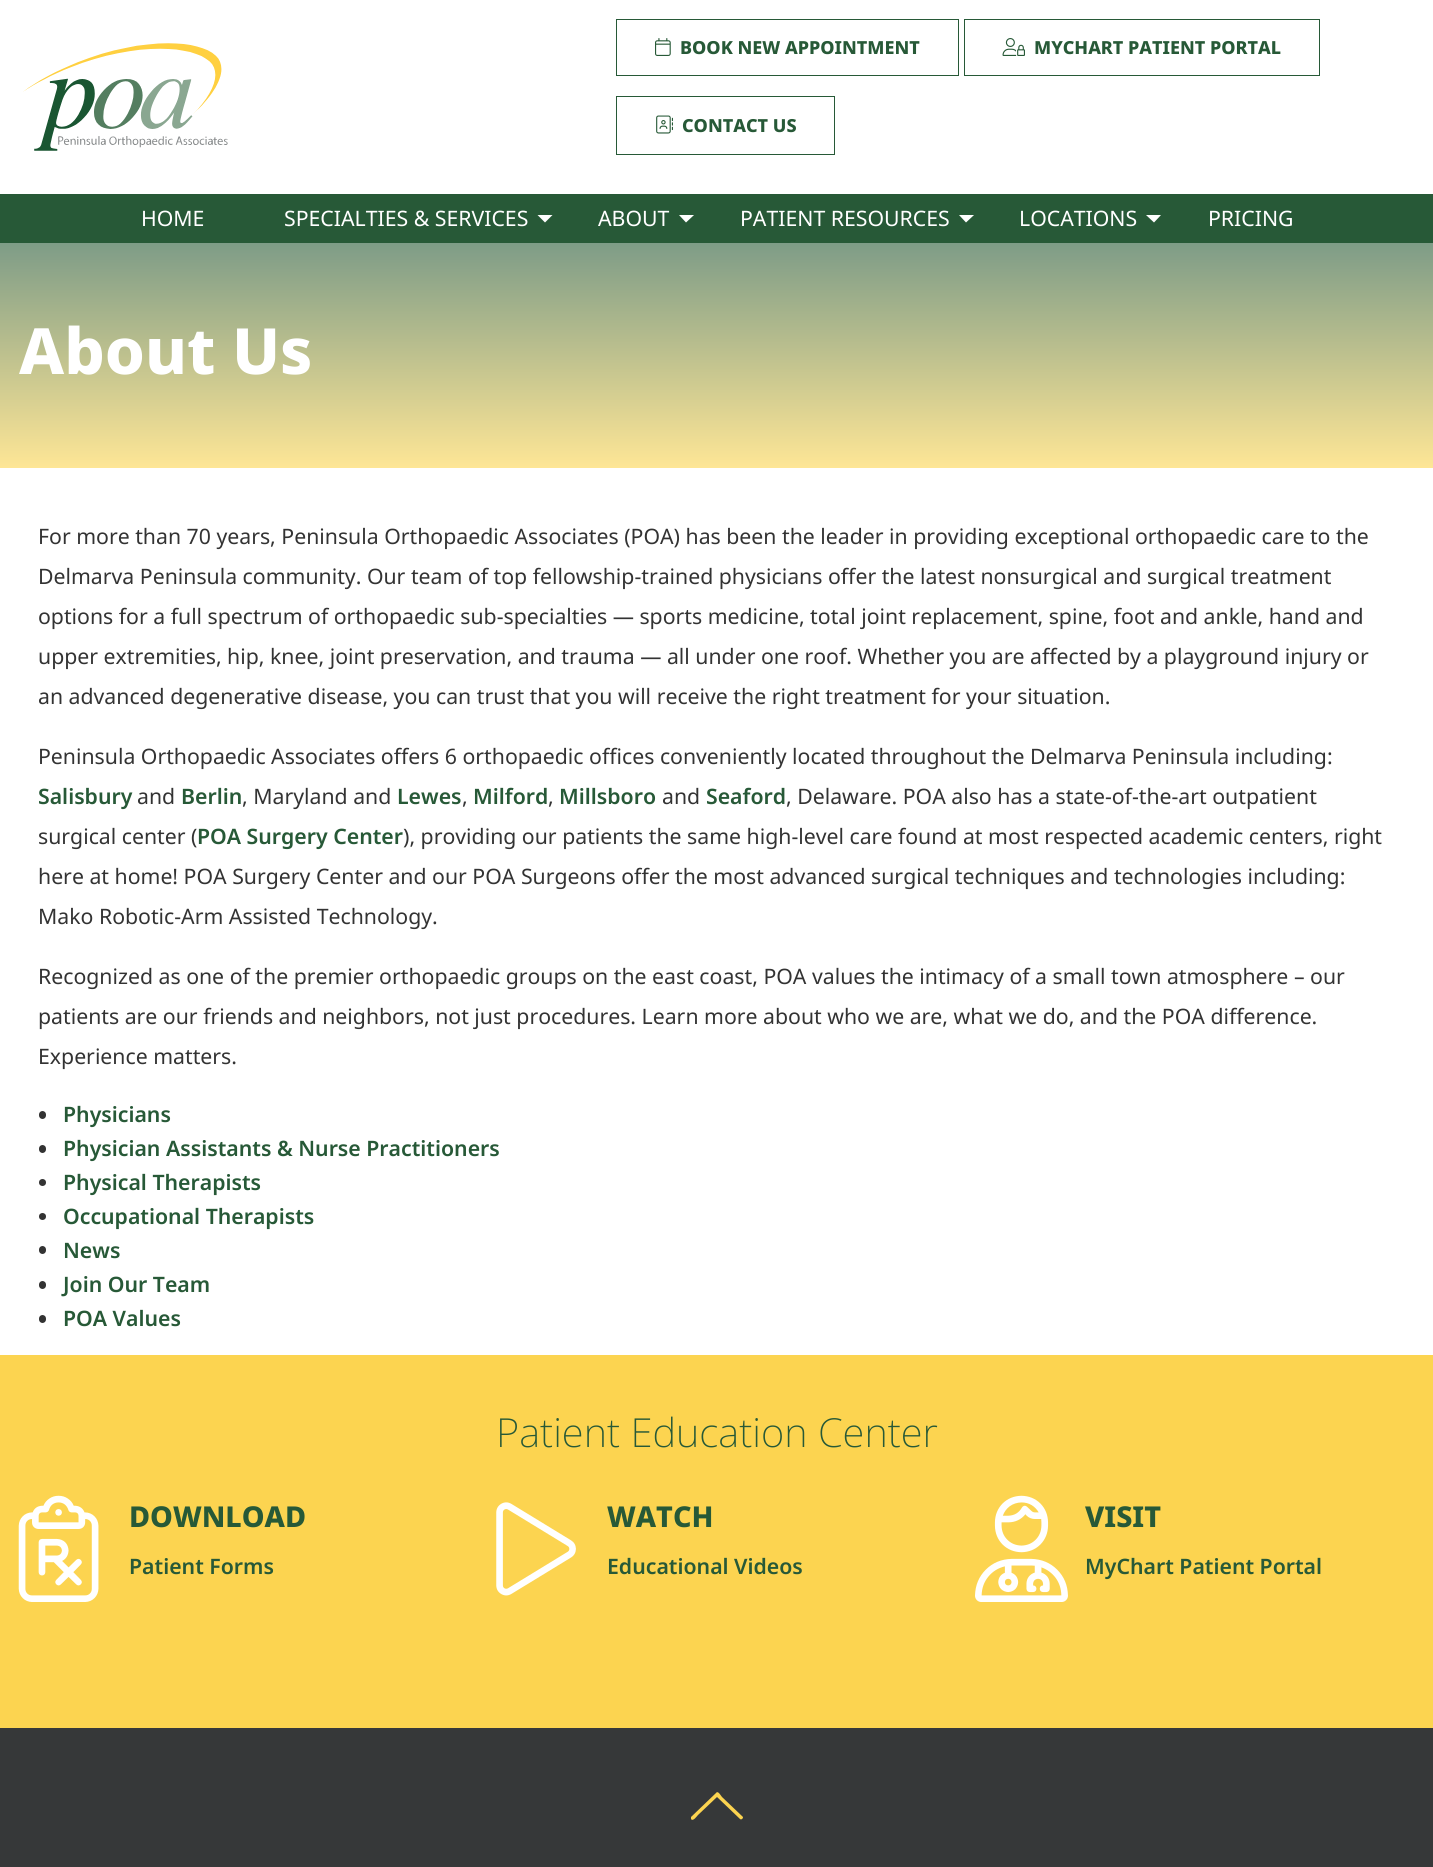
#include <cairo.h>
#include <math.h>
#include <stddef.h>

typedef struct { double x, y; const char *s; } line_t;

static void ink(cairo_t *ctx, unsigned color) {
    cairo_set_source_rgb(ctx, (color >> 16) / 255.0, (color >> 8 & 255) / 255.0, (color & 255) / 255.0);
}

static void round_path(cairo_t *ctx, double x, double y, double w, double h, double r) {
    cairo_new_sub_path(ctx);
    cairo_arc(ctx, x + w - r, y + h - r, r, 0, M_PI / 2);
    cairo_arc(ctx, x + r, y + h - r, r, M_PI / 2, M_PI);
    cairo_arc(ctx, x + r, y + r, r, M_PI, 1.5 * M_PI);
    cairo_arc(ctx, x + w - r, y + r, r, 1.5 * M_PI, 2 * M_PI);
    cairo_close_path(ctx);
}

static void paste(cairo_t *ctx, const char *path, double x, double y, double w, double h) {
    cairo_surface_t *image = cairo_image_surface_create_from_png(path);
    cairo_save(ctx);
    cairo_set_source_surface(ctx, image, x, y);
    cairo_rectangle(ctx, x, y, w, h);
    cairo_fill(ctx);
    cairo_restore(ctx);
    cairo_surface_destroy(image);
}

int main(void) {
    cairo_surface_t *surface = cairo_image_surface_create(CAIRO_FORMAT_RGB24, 1433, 1867);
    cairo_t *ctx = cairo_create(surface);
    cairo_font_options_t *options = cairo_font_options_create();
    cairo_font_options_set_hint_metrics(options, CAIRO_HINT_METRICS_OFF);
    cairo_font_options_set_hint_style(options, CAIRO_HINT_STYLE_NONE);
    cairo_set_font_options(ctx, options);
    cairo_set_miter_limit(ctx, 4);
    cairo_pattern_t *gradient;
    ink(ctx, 0xFFFFFF);
    cairo_paint(ctx);
    paste(ctx, "media/1.png", 23, 43, 205, 108);
    cairo_rectangle(ctx, 616.5, 19.5, 342, 56);
    ink(ctx, 0x275937);
    cairo_set_line_width(ctx, 1);
    cairo_stroke(ctx);
    paste(ctx, "media/2.png", 655, 38, 16, 18);
    cairo_select_font_face(ctx, "Noto Sans ExtraBold", CAIRO_FONT_SLANT_NORMAL, CAIRO_FONT_WEIGHT_NORMAL);
    cairo_set_font_size(ctx, 18);
    cairo_move_to(ctx, 680, 54);
    cairo_show_text(ctx, "BOOK NEW APPOINTMENT");
    cairo_rectangle(ctx, 964.5, 19.5, 355, 56);
    cairo_stroke(ctx);
    paste(ctx, "media/3.png", 1002, 38, 23, 18);
    cairo_move_to(ctx, 1034, 54);
    cairo_show_text(ctx, "MYCHART PATIENT PORTAL");
    cairo_rectangle(ctx, 616.5, 96.5, 218, 58);
    cairo_stroke(ctx);
    paste(ctx, "media/4.png", 656, 115, 17, 19);
    cairo_move_to(ctx, 682, 132);
    cairo_show_text(ctx, "CONTACT US");
    cairo_rectangle(ctx, 0, 194, 1433, 49);
    cairo_fill(ctx);
    cairo_select_font_face(ctx, "Noto Sans", CAIRO_FONT_SLANT_NORMAL, CAIRO_FONT_WEIGHT_NORMAL);
    cairo_set_font_size(ctx, 21.25);
    ink(ctx, 0xFFFFFF);
    cairo_move_to(ctx, 141, 226);
    cairo_show_text(ctx, "HOME");
    cairo_move_to(ctx, 284, 226);
    cairo_show_text(ctx, "SPECIALTIES & SERVICES");
    cairo_new_path(ctx);
    cairo_move_to(ctx, 537.5, 215);
    cairo_line_to(ctx, 552.5, 215);
    cairo_line_to(ctx, 545, 222.5);
    cairo_close_path(ctx);
    cairo_fill(ctx);
    cairo_move_to(ctx, 598, 226);
    cairo_show_text(ctx, "ABOUT");
    cairo_new_path(ctx);
    cairo_move_to(ctx, 679, 215);
    cairo_line_to(ctx, 694, 215);
    cairo_line_to(ctx, 686, 222.5);
    cairo_close_path(ctx);
    cairo_fill(ctx);
    cairo_move_to(ctx, 740, 226);
    cairo_show_text(ctx, "PATIENT RESOURCES");
    cairo_new_path(ctx);
    cairo_move_to(ctx, 959, 215);
    cairo_line_to(ctx, 974, 215);
    cairo_line_to(ctx, 966, 222.5);
    cairo_close_path(ctx);
    cairo_fill(ctx);
    cairo_move_to(ctx, 1019, 226);
    cairo_show_text(ctx, "LOCATIONS");
    cairo_new_path(ctx);
    cairo_move_to(ctx, 1146, 215);
    cairo_line_to(ctx, 1161, 215);
    cairo_line_to(ctx, 1154, 222.5);
    cairo_close_path(ctx);
    cairo_fill(ctx);
    cairo_move_to(ctx, 1208, 226);
    cairo_show_text(ctx, "PRICING");
    gradient = cairo_pattern_create_linear(717, 468, 717, 243);
    cairo_pattern_add_color_stop_rgba(gradient, 0, 0.996, 0.902, 0.588, 1);
    cairo_pattern_add_color_stop_rgba(gradient, 1, 0.494, 0.612, 0.529, 1);
    cairo_set_source(ctx, gradient);
    cairo_pattern_destroy(gradient);
    cairo_rectangle(ctx, 0, 243, 1433, 225);
    cairo_fill(ctx);
    cairo_select_font_face(ctx, "Noto Sans ExtraBold", CAIRO_FONT_SLANT_NORMAL, CAIRO_FONT_WEIGHT_NORMAL);
    cairo_set_font_size(ctx, 63.75);
    ink(ctx, 0xFFFFFF);
    cairo_move_to(ctx, 19, 374);
    cairo_show_text(ctx, "About Us");
    cairo_select_font_face(ctx, "Noto Sans", CAIRO_FONT_SLANT_NORMAL, CAIRO_FONT_WEIGHT_NORMAL);
    cairo_set_font_size(ctx, 21.25);
    ink(ctx, 0x333333);
    {
        static const line_t items[] = {
            {38, 544, "For more than 70 years, Peninsula Orthopaedic Associates (POA) has been the leader in providing exceptional orthopaedic care to the"},
            {38, 584, "Delmarva Peninsula community. Our team of top fellowship-trained physicians offer the latest nonsurgical and surgical treatment"},
            {38, 624, "options for a full spectrum of orthopaedic sub-specialties — sports medicine, total joint replacement, spine, foot and ankle, hand and"},
            {38, 664, "upper extremities, hip, knee, joint preservation, and trauma — all under one roof. Whether you are affected by a playground injury or"},
            {38, 704, "an advanced degenerative disease, you can trust that you will receive the right treatment for your situation."},
            {38, 764, "Peninsula Orthopaedic Associates offers 6 orthopaedic offices conveniently located throughout the Delmarva Peninsula including:"},
        };
        for (size_t i = 0; i < sizeof items / sizeof *items; i++) {
            cairo_move_to(ctx, items[i].x, items[i].y);
            cairo_show_text(ctx, items[i].s);
        }
    }
    cairo_select_font_face(ctx, "Noto Sans SemiBold", CAIRO_FONT_SLANT_NORMAL, CAIRO_FONT_WEIGHT_NORMAL);
    ink(ctx, 0x275937);
    cairo_move_to(ctx, 38, 804);
    cairo_show_text(ctx, "Salisbury");
    cairo_select_font_face(ctx, "Noto Sans", CAIRO_FONT_SLANT_NORMAL, CAIRO_FONT_WEIGHT_NORMAL);
    ink(ctx, 0x333333);
    cairo_move_to(ctx, 137, 804);
    cairo_show_text(ctx, "and");
    cairo_select_font_face(ctx, "Noto Sans SemiBold", CAIRO_FONT_SLANT_NORMAL, CAIRO_FONT_WEIGHT_NORMAL);
    ink(ctx, 0x275937);
    cairo_move_to(ctx, 181, 804);
    cairo_show_text(ctx, "Berlin");
    cairo_select_font_face(ctx, "Noto Sans", CAIRO_FONT_SLANT_NORMAL, CAIRO_FONT_WEIGHT_NORMAL);
    ink(ctx, 0x333333);
    cairo_move_to(ctx, 242, 804);
    cairo_show_text(ctx, ", Maryland and");
    cairo_select_font_face(ctx, "Noto Sans SemiBold", CAIRO_FONT_SLANT_NORMAL, CAIRO_FONT_WEIGHT_NORMAL);
    ink(ctx, 0x275937);
    cairo_move_to(ctx, 397, 804);
    cairo_show_text(ctx, "Lewes");
    cairo_select_font_face(ctx, "Noto Sans", CAIRO_FONT_SLANT_NORMAL, CAIRO_FONT_WEIGHT_NORMAL);
    ink(ctx, 0x333333);
    cairo_move_to(ctx, 462, 804);
    cairo_show_text(ctx, ",");
    cairo_select_font_face(ctx, "Noto Sans SemiBold", CAIRO_FONT_SLANT_NORMAL, CAIRO_FONT_WEIGHT_NORMAL);
    ink(ctx, 0x275937);
    cairo_move_to(ctx, 473, 804);
    cairo_show_text(ctx, "Milford");
    cairo_select_font_face(ctx, "Noto Sans", CAIRO_FONT_SLANT_NORMAL, CAIRO_FONT_WEIGHT_NORMAL);
    ink(ctx, 0x333333);
    cairo_move_to(ctx, 548, 804);
    cairo_show_text(ctx, ",");
    cairo_select_font_face(ctx, "Noto Sans SemiBold", CAIRO_FONT_SLANT_NORMAL, CAIRO_FONT_WEIGHT_NORMAL);
    ink(ctx, 0x275937);
    cairo_move_to(ctx, 559, 804);
    cairo_show_text(ctx, "Millsboro");
    cairo_select_font_face(ctx, "Noto Sans", CAIRO_FONT_SLANT_NORMAL, CAIRO_FONT_WEIGHT_NORMAL);
    ink(ctx, 0x333333);
    cairo_move_to(ctx, 662, 804);
    cairo_show_text(ctx, "and");
    cairo_select_font_face(ctx, "Noto Sans SemiBold", CAIRO_FONT_SLANT_NORMAL, CAIRO_FONT_WEIGHT_NORMAL);
    ink(ctx, 0x275937);
    cairo_move_to(ctx, 706, 804);
    cairo_show_text(ctx, "Seaford");
    cairo_select_font_face(ctx, "Noto Sans", CAIRO_FONT_SLANT_NORMAL, CAIRO_FONT_WEIGHT_NORMAL);
    ink(ctx, 0x333333);
    cairo_move_to(ctx, 786, 804);
    cairo_show_text(ctx, ", Delaware. POA also has a state-of-the-art outpatient");
    cairo_move_to(ctx, 38, 844);
    cairo_show_text(ctx, "surgical center (");
    cairo_select_font_face(ctx, "Noto Sans SemiBold", CAIRO_FONT_SLANT_NORMAL, CAIRO_FONT_WEIGHT_NORMAL);
    ink(ctx, 0x275937);
    cairo_move_to(ctx, 197, 844);
    cairo_show_text(ctx, "POA Surgery Center");
    cairo_select_font_face(ctx, "Noto Sans", CAIRO_FONT_SLANT_NORMAL, CAIRO_FONT_WEIGHT_NORMAL);
    ink(ctx, 0x333333);
    {
        static const line_t items[] = {
            {403, 844, "), providing our patients the same high-level care found at most respected academic centers, right"},
            {38, 884, "here at home! POA Surgery Center and our POA Surgeons offer the most advanced surgical techniques and technologies including:"},
            {38, 924, "Mako Robotic-Arm Assisted Technology."},
            {38, 984, "Recognized as one of the premier orthopaedic groups on the east coast, POA values the intimacy of a small town atmosphere – our"},
            {38, 1024, "patients are our friends and neighbors, not just procedures. Learn more about who we are, what we do, and the POA difference."},
            {38, 1064, "Experience matters."},
        };
        for (size_t i = 0; i < sizeof items / sizeof *items; i++) {
            cairo_move_to(ctx, items[i].x, items[i].y);
            cairo_show_text(ctx, items[i].s);
        }
    }
    round_path(ctx, 39, 1111, 7, 8, 3.5);
    cairo_fill(ctx);
    cairo_select_font_face(ctx, "Noto Sans SemiBold", CAIRO_FONT_SLANT_NORMAL, CAIRO_FONT_WEIGHT_NORMAL);
    ink(ctx, 0x275937);
    cairo_move_to(ctx, 63, 1122);
    cairo_show_text(ctx, "Physicians");
    ink(ctx, 0x333333);
    round_path(ctx, 39, 1145, 7, 8, 3.5);
    cairo_fill(ctx);
    ink(ctx, 0x275937);
    cairo_move_to(ctx, 63, 1156);
    cairo_show_text(ctx, "Physician Assistants & Nurse Practitioners");
    ink(ctx, 0x333333);
    cairo_new_path(ctx);
    cairo_arc(ctx, 42.5, 1182.5, 3.5, 0, 2 * M_PI);
    cairo_fill(ctx);
    ink(ctx, 0x275937);
    cairo_move_to(ctx, 63, 1190);
    cairo_show_text(ctx, "Physical Therapists");
    ink(ctx, 0x333333);
    cairo_new_path(ctx);
    cairo_arc(ctx, 42.5, 1216.5, 3.5, 0, 2 * M_PI);
    cairo_fill(ctx);
    ink(ctx, 0x275937);
    cairo_move_to(ctx, 63, 1224);
    cairo_show_text(ctx, "Occupational Therapists");
    ink(ctx, 0x333333);
    round_path(ctx, 39, 1246, 7, 8, 3.5);
    cairo_fill(ctx);
    ink(ctx, 0x275937);
    cairo_move_to(ctx, 63, 1258);
    cairo_show_text(ctx, "News");
    ink(ctx, 0x333333);
    round_path(ctx, 39, 1281, 7, 8, 3.5);
    cairo_fill(ctx);
    ink(ctx, 0x275937);
    cairo_move_to(ctx, 63, 1292);
    cairo_show_text(ctx, "Join Our Team");
    ink(ctx, 0x333333);
    round_path(ctx, 39, 1315, 7, 8, 3.5);
    cairo_fill(ctx);
    ink(ctx, 0x275937);
    cairo_move_to(ctx, 63, 1326);
    cairo_show_text(ctx, "POA Values");
    ink(ctx, 0xFCD450);
    cairo_rectangle(ctx, 0, 1355, 1433, 373);
    cairo_fill(ctx);
    cairo_select_font_face(ctx, "Noto Sans ExtraLight", CAIRO_FONT_SLANT_NORMAL, CAIRO_FONT_WEIGHT_NORMAL);
    cairo_set_font_size(ctx, 40);
    ink(ctx, 0x275937);
    cairo_move_to(ctx, 496, 1447);
    cairo_show_text(ctx, "Patient Education Center");
    paste(ctx, "media/5.png", 18, 1495, 81, 107);
    cairo_select_font_face(ctx, "Noto Sans ExtraBold", CAIRO_FONT_SLANT_NORMAL, CAIRO_FONT_WEIGHT_NORMAL);
    cairo_set_font_size(ctx, 28.75);
    cairo_move_to(ctx, 129, 1527);
    cairo_show_text(ctx, "DOWNLOAD");
    cairo_select_font_face(ctx, "Noto Sans SemiBold", CAIRO_FONT_SLANT_NORMAL, CAIRO_FONT_WEIGHT_NORMAL);
    cairo_set_font_size(ctx, 21.25);
    cairo_move_to(ctx, 129, 1574);
    cairo_show_text(ctx, "Patient Forms");
    paste(ctx, "media/6.png", 496, 1502, 80, 94);
    cairo_select_font_face(ctx, "Noto Sans ExtraBold", CAIRO_FONT_SLANT_NORMAL, CAIRO_FONT_WEIGHT_NORMAL);
    cairo_set_font_size(ctx, 28.75);
    cairo_move_to(ctx, 607, 1527);
    cairo_show_text(ctx, "WATCH");
    cairo_select_font_face(ctx, "Noto Sans SemiBold", CAIRO_FONT_SLANT_NORMAL, CAIRO_FONT_WEIGHT_NORMAL);
    cairo_set_font_size(ctx, 21.25);
    cairo_move_to(ctx, 607, 1574);
    cairo_show_text(ctx, "Educational Videos");
    paste(ctx, "media/7.png", 975, 1495, 93, 107);
    cairo_select_font_face(ctx, "Noto Sans ExtraBold", CAIRO_FONT_SLANT_NORMAL, CAIRO_FONT_WEIGHT_NORMAL);
    cairo_set_font_size(ctx, 28.75);
    cairo_move_to(ctx, 1085, 1527);
    cairo_show_text(ctx, "VISIT");
    cairo_select_font_face(ctx, "Noto Sans SemiBold", CAIRO_FONT_SLANT_NORMAL, CAIRO_FONT_WEIGHT_NORMAL);
    cairo_set_font_size(ctx, 21.25);
    cairo_move_to(ctx, 1085, 1574);
    cairo_show_text(ctx, "MyChart Patient Portal");
    ink(ctx, 0x363839);
    cairo_rectangle(ctx, 0, 1728, 1433, 139);
    cairo_fill(ctx);
    ink(ctx, 0xFCD450);
    cairo_new_path(ctx);
    cairo_move_to(ctx, 716, 1793);
    cairo_curve_to(ctx, 718, 1790, 721, 1796, 722, 1797);
    cairo_line_to(ctx, 743, 1817);
    cairo_curve_to(ctx, 743, 1819, 741, 1820, 740, 1819);
    cairo_line_to(ctx, 717, 1797);
    cairo_line_to(ctx, 698, 1815);
    cairo_curve_to(ctx, 697, 1816, 693, 1822, 691, 1819);
    cairo_line_to(ctx, 691, 1817);
    cairo_close_path(ctx);
    cairo_fill(ctx);
    cairo_surface_write_to_png(surface, "image.png");
    cairo_font_options_destroy(options);
    cairo_destroy(ctx);
    cairo_surface_destroy(surface);
    return 0;
}
